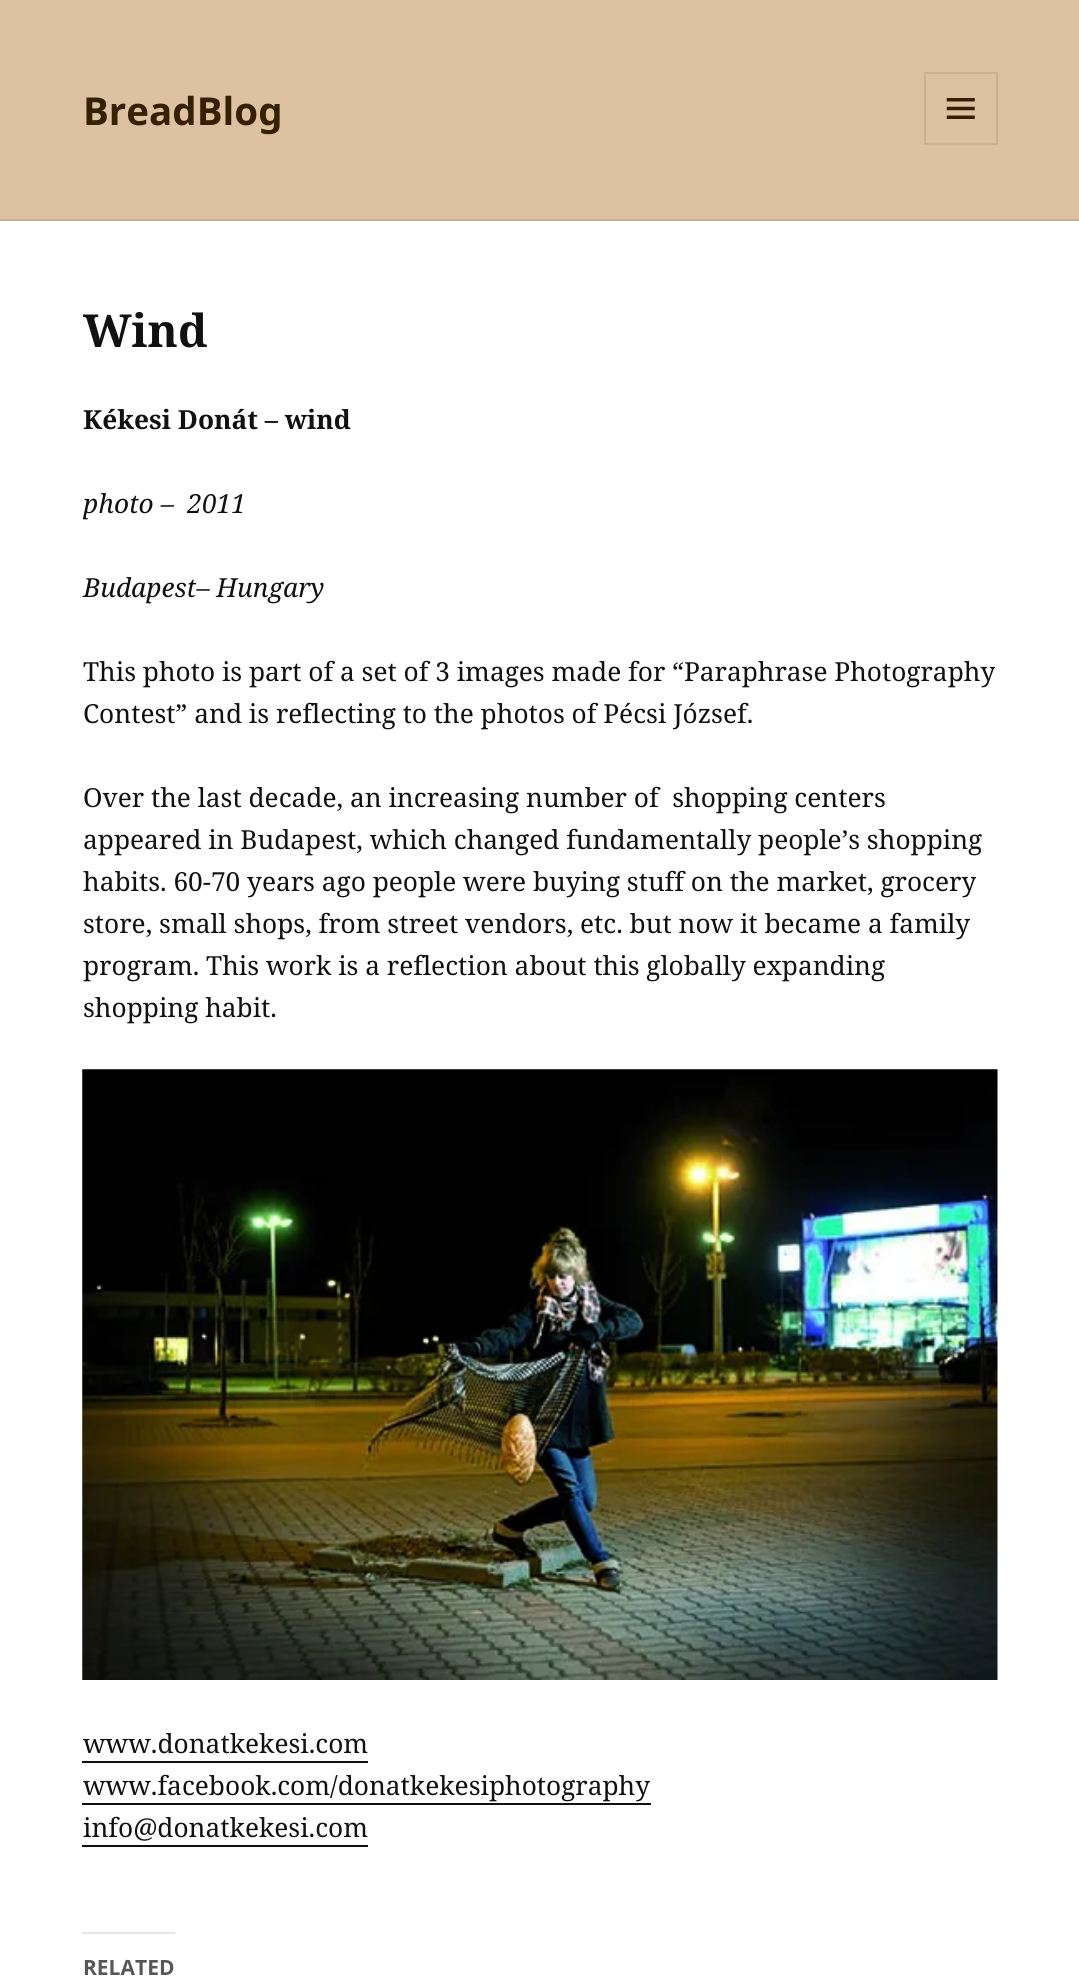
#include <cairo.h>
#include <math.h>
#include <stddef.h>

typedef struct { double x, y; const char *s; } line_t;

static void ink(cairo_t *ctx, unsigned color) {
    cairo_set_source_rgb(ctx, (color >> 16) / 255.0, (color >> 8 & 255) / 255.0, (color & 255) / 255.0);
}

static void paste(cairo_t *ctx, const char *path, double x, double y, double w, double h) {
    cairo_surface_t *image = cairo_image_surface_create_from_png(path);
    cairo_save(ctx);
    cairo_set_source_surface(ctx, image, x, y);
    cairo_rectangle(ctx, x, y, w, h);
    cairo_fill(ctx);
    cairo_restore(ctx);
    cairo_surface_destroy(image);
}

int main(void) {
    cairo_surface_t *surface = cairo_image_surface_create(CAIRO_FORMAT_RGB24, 1079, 1988);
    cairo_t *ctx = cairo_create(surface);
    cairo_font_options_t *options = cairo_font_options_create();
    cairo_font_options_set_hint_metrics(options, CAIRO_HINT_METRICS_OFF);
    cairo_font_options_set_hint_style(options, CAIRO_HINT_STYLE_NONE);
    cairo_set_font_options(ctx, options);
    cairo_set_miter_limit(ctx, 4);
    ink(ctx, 0xDDC2A1);
    cairo_paint(ctx);
    ink(ctx, 0xC9B093);
    cairo_rectangle(ctx, 0, 219, 1079, 2);
    cairo_fill(ctx);
    cairo_select_font_face(ctx, "Noto Sans", CAIRO_FONT_SLANT_NORMAL, CAIRO_FONT_WEIGHT_BOLD);
    cairo_set_font_size(ctx, 38.5);
    ink(ctx, 0x352000);
    cairo_move_to(ctx, 83, 125);
    cairo_show_text(ctx, "BreadBlog");
    cairo_rectangle(ctx, 925, 73, 72, 71);
    ink(ctx, 0xCCB291);
    cairo_stroke(ctx);
    paste(ctx, "media/1.png", 946, 98, 29, 21);
    ink(ctx, 0xFFFFFF);
    cairo_rectangle(ctx, 0, 221, 1079, 1767);
    cairo_fill(ctx);
    cairo_select_font_face(ctx, "Noto Serif", CAIRO_FONT_SLANT_NORMAL, CAIRO_FONT_WEIGHT_BOLD);
    cairo_set_font_size(ctx, 45.5);
    ink(ctx, 0x111111);
    cairo_move_to(ctx, 83, 347);
    cairo_show_text(ctx, "Wind");
    cairo_set_font_size(ctx, 26.25);
    cairo_move_to(ctx, 83, 429);
    cairo_show_text(ctx, "Kékesi Donát – wind");
    cairo_select_font_face(ctx, "Noto Serif", CAIRO_FONT_SLANT_ITALIC, CAIRO_FONT_WEIGHT_NORMAL);
    cairo_move_to(ctx, 83, 513);
    cairo_show_text(ctx, "photo –  2011");
    cairo_move_to(ctx, 83, 597);
    cairo_show_text(ctx, "Budapest– Hungary");
    cairo_select_font_face(ctx, "Noto Serif", CAIRO_FONT_SLANT_NORMAL, CAIRO_FONT_WEIGHT_NORMAL);
    {
        static const line_t items[] = {
            {83, 681, "This photo is part of a set of 3 images made for “Paraphrase Photography"},
            {83, 723, "Contest” and is reflecting to the photos of Pécsi József."},
            {83, 807, "Over the last decade, an increasing number of  shopping centers"},
            {83, 849, "appeared in Budapest, which changed fundamentally people’s shopping"},
            {83, 891, "habits. 60-70 years ago people were buying stuff on the market, grocery"},
            {83, 933, "store, small shops, from street vendors, etc. but now it became a family"},
            {83, 975, "program. This work is a reflection about this globally expanding"},
            {83, 1017, "shopping habit."},
        };
        for (size_t i = 0; i < sizeof items / sizeof *items; i++) {
            cairo_move_to(ctx, items[i].x, items[i].y);
            cairo_show_text(ctx, items[i].s);
        }
    }
    paste(ctx, "media/2.png", 82, 1069, 916, 611);
    cairo_move_to(ctx, 83, 1753);
    cairo_show_text(ctx, "www.donatkekesi.com");
    cairo_rectangle(ctx, 82, 1761, 286, 2);
    cairo_fill(ctx);
    cairo_move_to(ctx, 83, 1795);
    cairo_show_text(ctx, "www.facebook.com/donatkekesiphotography");
    cairo_rectangle(ctx, 82, 1803, 569, 2);
    cairo_fill(ctx);
    cairo_move_to(ctx, 83, 1837);
    cairo_show_text(ctx, "info@donatkekesi.com");
    cairo_rectangle(ctx, 82, 1845, 286, 2);
    cairo_fill(ctx);
    ink(ctx, 0xE6E6E6);
    cairo_rectangle(ctx, 82, 1932, 93, 2);
    cairo_fill(ctx);
    cairo_select_font_face(ctx, "Noto Sans", CAIRO_FONT_SLANT_NORMAL, CAIRO_FONT_WEIGHT_BOLD);
    cairo_set_font_size(ctx, 21);
    ink(ctx, 0x585858);
    cairo_move_to(ctx, 83, 1975);
    cairo_show_text(ctx, "RELATED");
    cairo_surface_write_to_png(surface, "image.png");
    cairo_font_options_destroy(options);
    cairo_destroy(ctx);
    cairo_surface_destroy(surface);
    return 0;
}
